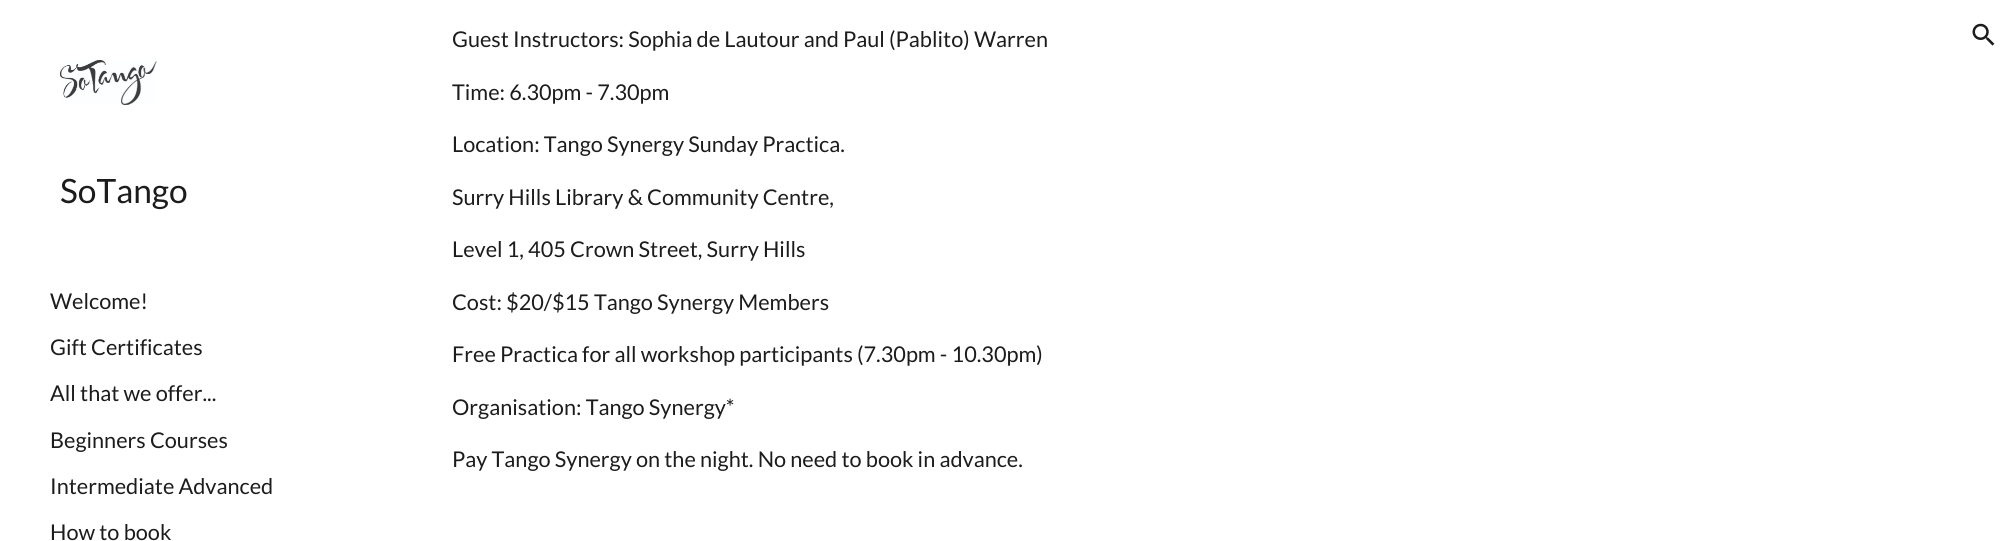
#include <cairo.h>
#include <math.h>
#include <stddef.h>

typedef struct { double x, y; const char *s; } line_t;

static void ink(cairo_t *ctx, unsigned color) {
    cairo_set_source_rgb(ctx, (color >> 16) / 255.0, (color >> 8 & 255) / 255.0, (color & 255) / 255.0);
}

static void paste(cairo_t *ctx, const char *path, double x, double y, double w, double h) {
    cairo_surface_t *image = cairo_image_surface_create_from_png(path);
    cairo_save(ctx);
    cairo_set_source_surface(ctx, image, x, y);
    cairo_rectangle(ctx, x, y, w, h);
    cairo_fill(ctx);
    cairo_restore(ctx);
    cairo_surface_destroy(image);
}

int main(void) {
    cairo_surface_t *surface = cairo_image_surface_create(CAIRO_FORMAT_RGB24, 2013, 541);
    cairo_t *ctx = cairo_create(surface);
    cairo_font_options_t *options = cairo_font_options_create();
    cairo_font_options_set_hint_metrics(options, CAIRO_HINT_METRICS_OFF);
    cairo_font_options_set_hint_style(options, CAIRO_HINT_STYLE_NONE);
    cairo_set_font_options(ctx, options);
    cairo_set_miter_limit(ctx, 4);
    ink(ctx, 0xFFFFFF);
    cairo_paint(ctx);
    paste(ctx, "media/1.png", 1972, 23, 23, 23);
    paste(ctx, "media/2.png", 60, 60, 97, 45);
    cairo_select_font_face(ctx, "Lato", CAIRO_FONT_SLANT_NORMAL, CAIRO_FONT_WEIGHT_NORMAL);
    cairo_set_font_size(ctx, 33.5);
    ink(ctx, 0x1C1C1C);
    cairo_move_to(ctx, 60, 203);
    cairo_show_text(ctx, "SoTango");
    cairo_set_font_size(ctx, 21.7);
    {
        static const line_t items[] = {
            {50, 309, "Welcome!"},
            {50, 355, "Gift Certificates"},
            {50, 401, "All that we offer..."},
            {50, 448, "Beginners Courses"},
            {50, 494, "Intermediate Advanced"},
            {50, 540, "How to book"},
            {452, 47, "Guest Instructors: Sophia de Lautour and Paul (Pablito) Warren"},
            {452, 100, "Time: 6.30pm - 7.30pm"},
            {452, 152, "Location: Tango Synergy Sunday Practica."},
            {452, 205, "Surry Hills Library & Community Centre,"},
            {452, 257, "Level 1, 405 Crown Street, Surry Hills"},
            {452, 310, "Cost: $20/$15 Tango Synergy Members"},
            {452, 362, "Free Practica for all workshop participants (7.30pm - 10.30pm)"},
            {452, 415, "Organisation: Tango Synergy*"},
            {452, 467, "Pay Tango Synergy on the night. No need to book in advance."},
        };
        for (size_t i = 0; i < sizeof items / sizeof *items; i++) {
            cairo_move_to(ctx, items[i].x, items[i].y);
            cairo_show_text(ctx, items[i].s);
        }
    }
    cairo_surface_write_to_png(surface, "image.png");
    cairo_font_options_destroy(options);
    cairo_destroy(ctx);
    cairo_surface_destroy(surface);
    return 0;
}
